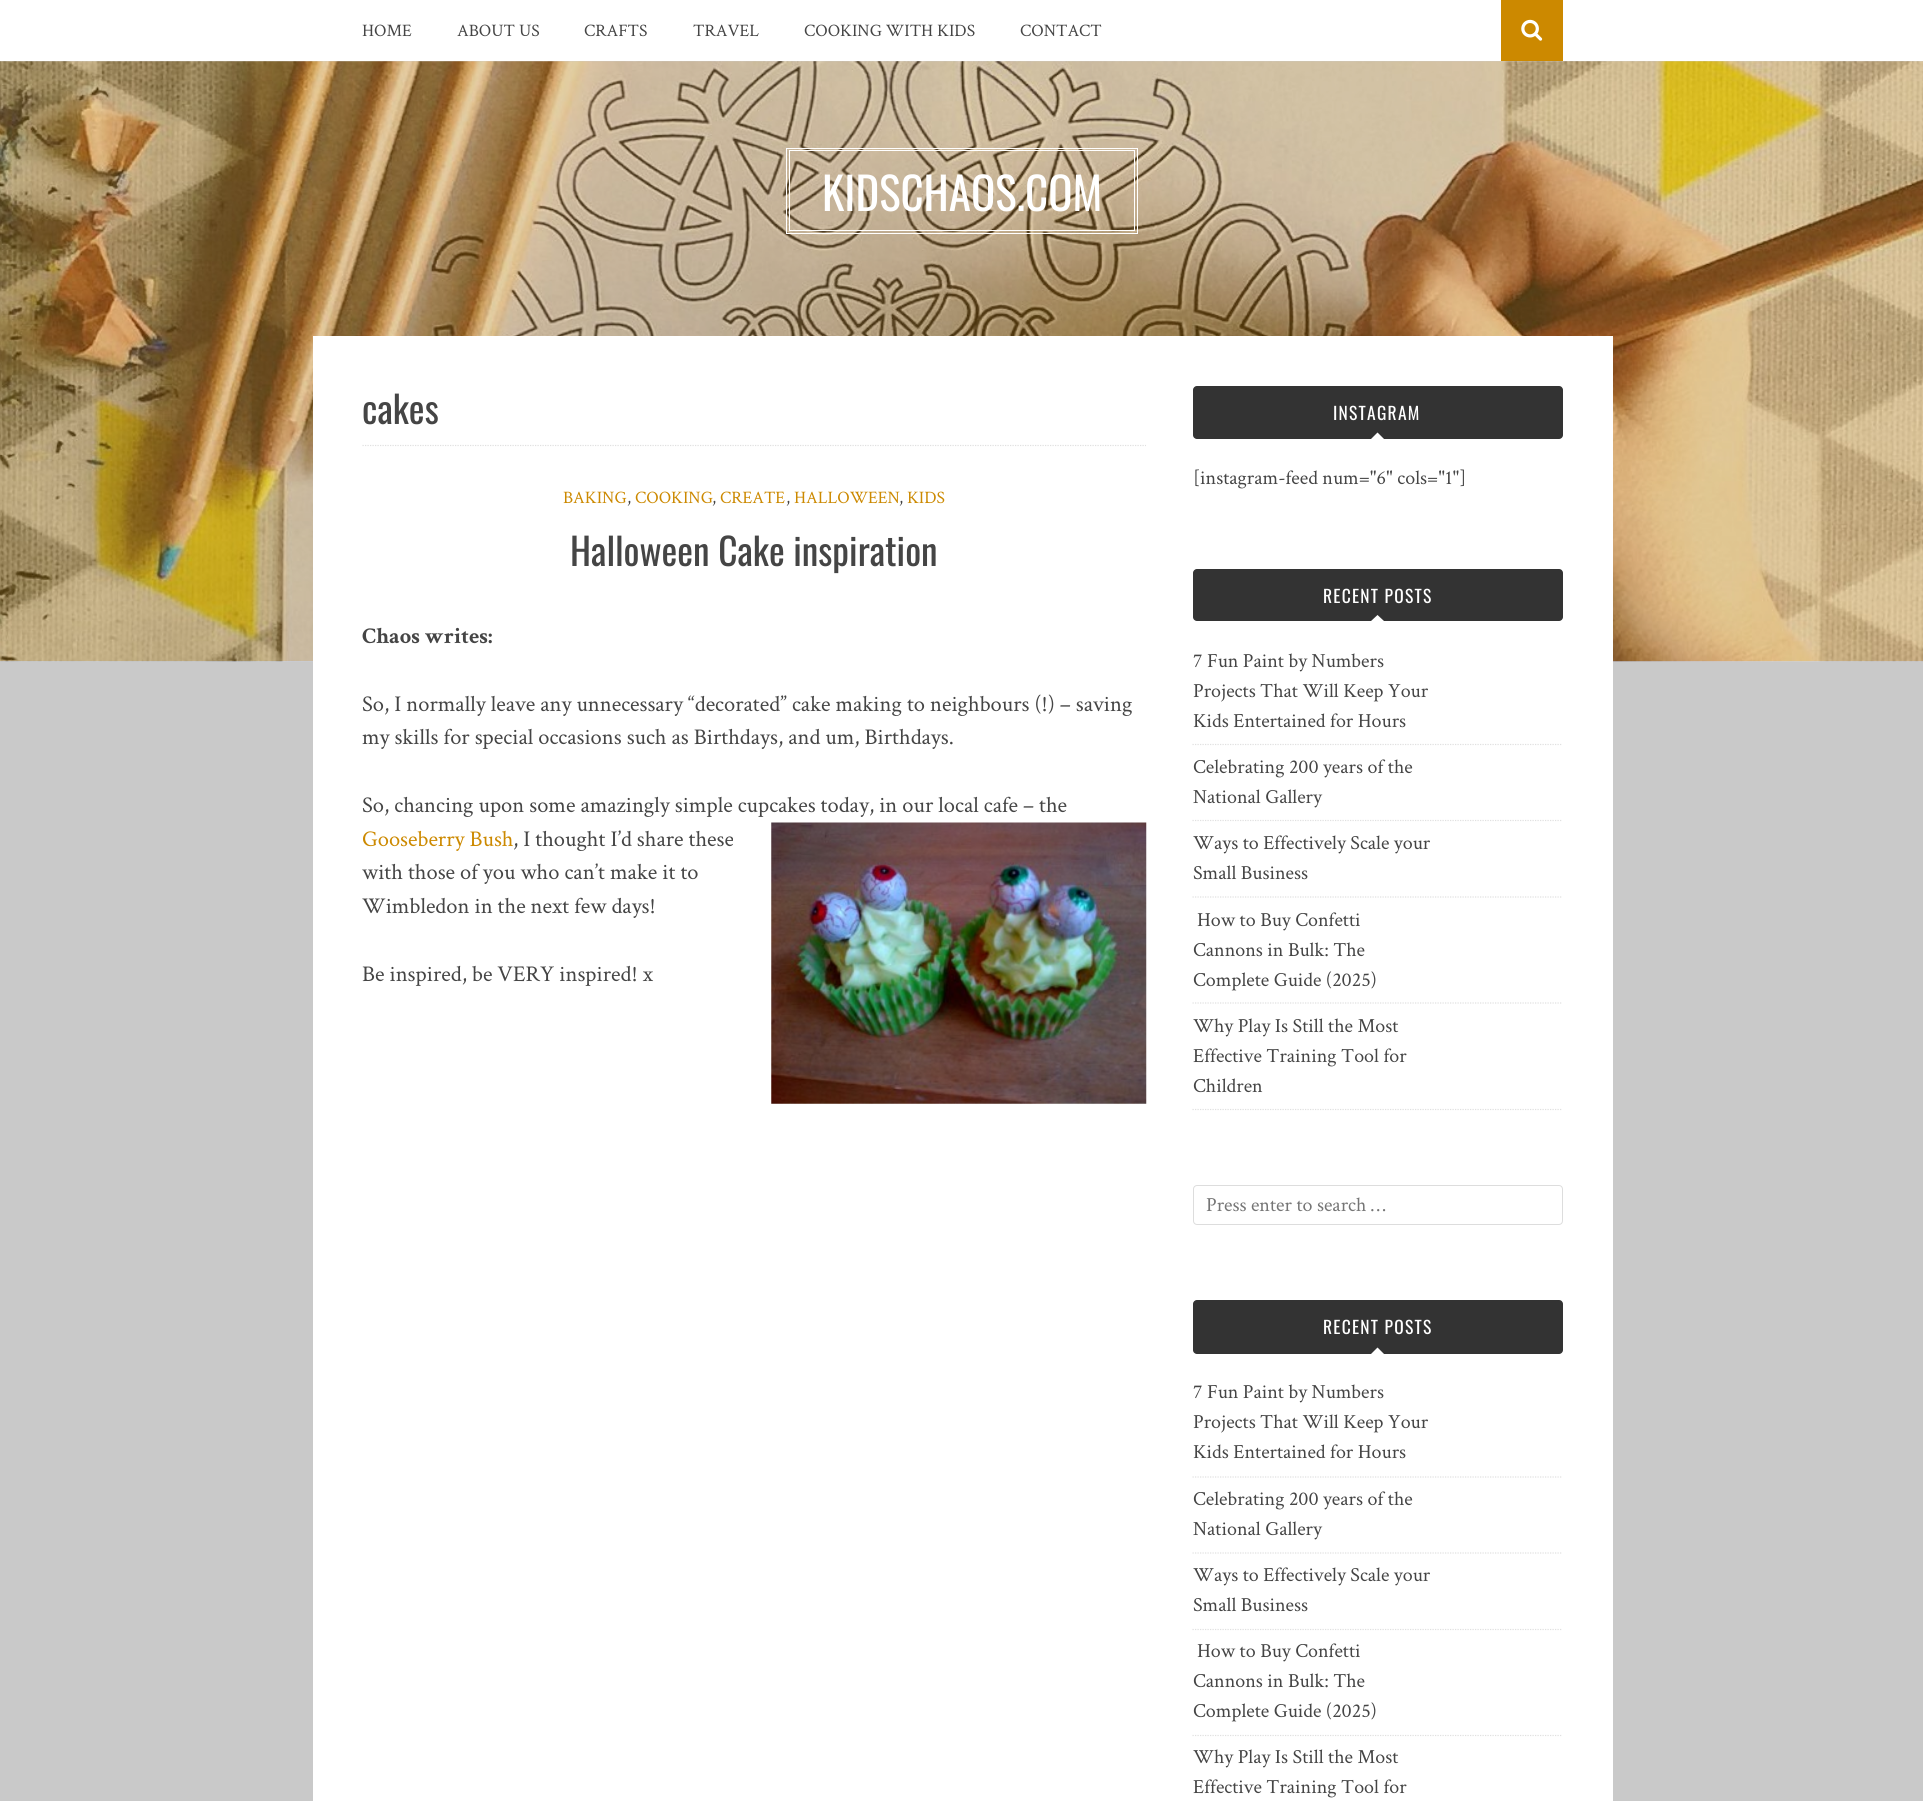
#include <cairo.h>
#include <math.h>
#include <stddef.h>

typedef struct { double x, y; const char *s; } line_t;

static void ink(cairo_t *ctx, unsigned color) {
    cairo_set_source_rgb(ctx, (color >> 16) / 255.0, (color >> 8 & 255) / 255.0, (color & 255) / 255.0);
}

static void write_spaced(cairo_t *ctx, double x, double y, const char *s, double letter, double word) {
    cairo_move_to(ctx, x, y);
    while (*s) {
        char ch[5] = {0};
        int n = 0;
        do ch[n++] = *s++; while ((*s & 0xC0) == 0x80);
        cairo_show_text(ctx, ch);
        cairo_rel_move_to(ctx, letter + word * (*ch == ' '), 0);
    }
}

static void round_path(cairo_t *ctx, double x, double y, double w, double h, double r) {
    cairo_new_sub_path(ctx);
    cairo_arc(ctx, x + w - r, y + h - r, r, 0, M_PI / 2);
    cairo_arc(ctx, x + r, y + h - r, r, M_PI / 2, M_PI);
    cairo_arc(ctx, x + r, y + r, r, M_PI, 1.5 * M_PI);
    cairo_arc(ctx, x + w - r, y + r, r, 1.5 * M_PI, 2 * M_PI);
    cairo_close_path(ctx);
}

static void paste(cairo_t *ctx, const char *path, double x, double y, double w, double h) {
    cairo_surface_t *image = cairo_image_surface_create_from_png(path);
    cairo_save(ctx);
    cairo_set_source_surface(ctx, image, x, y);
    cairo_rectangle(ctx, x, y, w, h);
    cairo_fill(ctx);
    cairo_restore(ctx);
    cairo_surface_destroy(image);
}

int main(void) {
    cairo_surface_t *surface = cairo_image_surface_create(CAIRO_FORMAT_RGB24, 1923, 1801);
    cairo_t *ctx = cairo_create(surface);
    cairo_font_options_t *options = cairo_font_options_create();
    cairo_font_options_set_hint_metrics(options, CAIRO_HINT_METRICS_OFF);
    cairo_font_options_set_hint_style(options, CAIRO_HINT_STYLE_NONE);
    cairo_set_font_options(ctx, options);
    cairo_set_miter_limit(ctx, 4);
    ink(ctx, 0xC9C9C9);
    cairo_paint(ctx);
    ink(ctx, 0xFFFFFF);
    cairo_rectangle(ctx, 0, 0, 1923, 61);
    cairo_fill(ctx);
    cairo_select_font_face(ctx, "Crimson Text", CAIRO_FONT_SLANT_NORMAL, CAIRO_FONT_WEIGHT_NORMAL);
    cairo_set_font_size(ctx, 17.5);
    ink(ctx, 0x454545);
    {
        static const line_t items[] = {
            {362, 36, "HOME"},
            {457, 36, "ABOUT US"},
            {584, 36, "CRAFTS"},
            {693, 36, "TRAVEL"},
            {804, 36, "COOKING WITH KIDS"},
            {1020, 36, "CONTACT"},
        };
        for (size_t i = 0; i < sizeof items / sizeof *items; i++) {
            cairo_move_to(ctx, items[i].x, items[i].y);
            cairo_show_text(ctx, items[i].s);
        }
    }
    ink(ctx, 0xCC8900);
    cairo_rectangle(ctx, 1501, 0, 62, 61);
    cairo_fill(ctx);
    paste(ctx, "media/1.png", 1521, 19, 22, 22);
    paste(ctx, "media/2.png", 0, 61, 1923, 601);
    cairo_rectangle(ctx, 786.5, 148.5, 351, 85);
    ink(ctx, 0xFFFFFF);
    cairo_set_line_width(ctx, 1);
    cairo_stroke(ctx);
    cairo_rectangle(ctx, 789.5, 150.5, 345, 80);
    cairo_stroke(ctx);
    cairo_select_font_face(ctx, "Oswald", CAIRO_FONT_SLANT_NORMAL, CAIRO_FONT_WEIGHT_NORMAL);
    cairo_set_font_size(ctx, 45);
    cairo_move_to(ctx, 822, 211);
    cairo_show_text(ctx, "KIDSCHAOS.COM");
    cairo_rectangle(ctx, 313, 336, 1300, 1465);
    cairo_fill(ctx);
    cairo_new_path(ctx);
    cairo_move_to(ctx, 362.5, 445.5);
    cairo_line_to(ctx, 1146, 445.5);
    ink(ctx, 0xE0E0E0);
    cairo_set_line_width(ctx, 1.2);
    cairo_set_dash(ctx, (double[]){1.25, 1.25}, 2, 0);
    cairo_stroke(ctx);
    cairo_set_font_size(ctx, 37.5);
    ink(ctx, 0x454545);
    cairo_move_to(ctx, 362, 424);
    cairo_show_text(ctx, "cakes");
    cairo_select_font_face(ctx, "Crimson Text", CAIRO_FONT_SLANT_NORMAL, CAIRO_FONT_WEIGHT_NORMAL);
    cairo_set_font_size(ctx, 17.5);
    ink(ctx, 0xCC8900);
    cairo_move_to(ctx, 563, 503);
    cairo_show_text(ctx, "BAKING");
    ink(ctx, 0x454545);
    cairo_move_to(ctx, 627, 503);
    cairo_show_text(ctx, ",");
    ink(ctx, 0xCC8900);
    cairo_move_to(ctx, 635, 503);
    cairo_show_text(ctx, "COOKING");
    ink(ctx, 0x454545);
    cairo_move_to(ctx, 712, 503);
    cairo_show_text(ctx, ",");
    ink(ctx, 0xCC8900);
    cairo_move_to(ctx, 720, 503);
    cairo_show_text(ctx, "CREATE");
    ink(ctx, 0x454545);
    cairo_move_to(ctx, 786, 503);
    cairo_show_text(ctx, ",");
    ink(ctx, 0xCC8900);
    cairo_move_to(ctx, 794, 503);
    cairo_show_text(ctx, "HALLOWEEN");
    ink(ctx, 0x454545);
    cairo_move_to(ctx, 899, 503);
    cairo_show_text(ctx, ",");
    ink(ctx, 0xCC8900);
    cairo_move_to(ctx, 907, 503);
    cairo_show_text(ctx, "KIDS");
    cairo_select_font_face(ctx, "Oswald", CAIRO_FONT_SLANT_NORMAL, CAIRO_FONT_WEIGHT_NORMAL);
    cairo_set_font_size(ctx, 37.5);
    ink(ctx, 0x454545);
    cairo_move_to(ctx, 570, 566);
    cairo_show_text(ctx, "Halloween Cake inspiration");
    cairo_select_font_face(ctx, "Crimson Text", CAIRO_FONT_SLANT_NORMAL, CAIRO_FONT_WEIGHT_BOLD);
    cairo_set_font_size(ctx, 22.5);
    cairo_move_to(ctx, 362, 643);
    cairo_show_text(ctx, "Chaos writes:");
    cairo_select_font_face(ctx, "Crimson Text", CAIRO_FONT_SLANT_NORMAL, CAIRO_FONT_WEIGHT_NORMAL);
    {
        static const line_t items[] = {
            {362, 711, "So, I normally leave any unnecessary “decorated” cake making to neighbours (!) – saving"},
            {362, 744, "my skills for special occasions such as Birthdays, and um, Birthdays."},
            {362, 812, "So, chancing upon some amazingly simple cupcakes today, in our local cafe – the"},
        };
        for (size_t i = 0; i < sizeof items / sizeof *items; i++) {
            cairo_move_to(ctx, items[i].x, items[i].y);
            cairo_show_text(ctx, items[i].s);
        }
    }
    ink(ctx, 0xCC8900);
    cairo_move_to(ctx, 362, 846);
    cairo_show_text(ctx, "Gooseberry Bush");
    ink(ctx, 0x454545);
    cairo_move_to(ctx, 513, 846);
    cairo_show_text(ctx, ", I thought I’d share these");
    paste(ctx, "media/3.png", 771, 822, 376, 282);
    {
        static const line_t items[] = {
            {362, 879, "with those of you who can’t make it to"},
            {362, 913, "Wimbledon in the next few days!"},
            {362, 981, "Be inspired, be VERY inspired! x"},
        };
        for (size_t i = 0; i < sizeof items / sizeof *items; i++) {
            cairo_move_to(ctx, items[i].x, items[i].y);
            cairo_show_text(ctx, items[i].s);
        }
    }
    ink(ctx, 0x333333);
    round_path(ctx, 1193, 386, 370, 53, 4);
    cairo_fill(ctx);
    cairo_select_font_face(ctx, "Oswald", CAIRO_FONT_SLANT_NORMAL, CAIRO_FONT_WEIGHT_NORMAL);
    cairo_set_font_size(ctx, 17.5);
    ink(ctx, 0xFFFFFF);
    write_spaced(ctx, 1333, 420, "INSTAGRAM", 1.25, 0);
    cairo_new_path(ctx);
    cairo_move_to(ctx, 1384, 439);
    cairo_line_to(ctx, 1371, 439);
    cairo_line_to(ctx, 1377.5, 432.5);
    cairo_close_path(ctx);
    cairo_fill(ctx);
    cairo_select_font_face(ctx, "Crimson Text", CAIRO_FONT_SLANT_NORMAL, CAIRO_FONT_WEIGHT_NORMAL);
    cairo_set_font_size(ctx, 20);
    ink(ctx, 0x454545);
    cairo_move_to(ctx, 1193, 484);
    cairo_show_text(ctx, "[instagram-feed num=\"6\" cols=\"1\"]");
    ink(ctx, 0x333333);
    round_path(ctx, 1193, 569, 370, 52, 4);
    cairo_fill(ctx);
    cairo_select_font_face(ctx, "Oswald", CAIRO_FONT_SLANT_NORMAL, CAIRO_FONT_WEIGHT_NORMAL);
    cairo_set_font_size(ctx, 17.5);
    ink(ctx, 0xFFFFFF);
    write_spaced(ctx, 1323, 603, "RECENT POSTS", 1.25, 0);
    cairo_new_path(ctx);
    cairo_move_to(ctx, 1384, 621);
    cairo_line_to(ctx, 1371, 621);
    cairo_line_to(ctx, 1377.5, 615);
    cairo_close_path(ctx);
    cairo_fill(ctx);
    cairo_new_path(ctx);
    cairo_move_to(ctx, 1192.5, 744.5);
    cairo_line_to(ctx, 1562.5, 744.5);
    ink(ctx, 0xE0E0E0);
    cairo_stroke(ctx);
    cairo_select_font_face(ctx, "Crimson Text", CAIRO_FONT_SLANT_NORMAL, CAIRO_FONT_WEIGHT_NORMAL);
    cairo_set_font_size(ctx, 20);
    ink(ctx, 0x454545);
    {
        static const line_t items[] = {
            {1193, 667, "7 Fun Paint by Numbers"},
            {1193, 697, "Projects That Will Keep Your"},
            {1193, 727, "Kids Entertained for Hours"},
        };
        for (size_t i = 0; i < sizeof items / sizeof *items; i++) {
            cairo_move_to(ctx, items[i].x, items[i].y);
            cairo_show_text(ctx, items[i].s);
        }
    }
    cairo_new_path(ctx);
    cairo_move_to(ctx, 1192.5, 820.5);
    cairo_line_to(ctx, 1562.5, 820.5);
    ink(ctx, 0xE0E0E0);
    cairo_stroke(ctx);
    ink(ctx, 0x454545);
    cairo_move_to(ctx, 1193, 773);
    cairo_show_text(ctx, "Celebrating 200 years of the");
    cairo_move_to(ctx, 1193, 803);
    cairo_show_text(ctx, "National Gallery");
    cairo_new_path(ctx);
    cairo_move_to(ctx, 1192.5, 897);
    cairo_line_to(ctx, 1562.5, 897);
    ink(ctx, 0xE0E0E0);
    cairo_stroke(ctx);
    ink(ctx, 0x454545);
    cairo_move_to(ctx, 1193, 849);
    cairo_show_text(ctx, "Ways to Effectively Scale your");
    cairo_move_to(ctx, 1193, 879);
    cairo_show_text(ctx, "Small Business");
    cairo_new_path(ctx);
    cairo_move_to(ctx, 1192.5, 1003);
    cairo_line_to(ctx, 1562.5, 1003);
    ink(ctx, 0xE0E0E0);
    cairo_stroke(ctx);
    ink(ctx, 0x454545);
    {
        static const line_t items[] = {
            {1197, 926, "How to Buy Confetti"},
            {1193, 956, "Cannons in Bulk: The"},
            {1193, 986, "Complete Guide (2025)"},
        };
        for (size_t i = 0; i < sizeof items / sizeof *items; i++) {
            cairo_move_to(ctx, items[i].x, items[i].y);
            cairo_show_text(ctx, items[i].s);
        }
    }
    cairo_new_path(ctx);
    cairo_move_to(ctx, 1192.5, 1109.5);
    cairo_line_to(ctx, 1562.5, 1109.5);
    ink(ctx, 0xE0E0E0);
    cairo_stroke(ctx);
    ink(ctx, 0x454545);
    {
        static const line_t items[] = {
            {1193, 1032, "Why Play Is Still the Most"},
            {1193, 1062, "Effective Training Tool for"},
            {1193, 1092, "Children"},
        };
        for (size_t i = 0; i < sizeof items / sizeof *items; i++) {
            cairo_move_to(ctx, items[i].x, items[i].y);
            cairo_show_text(ctx, items[i].s);
        }
    }
    round_path(ctx, 1193.5, 1185.5, 369, 39, 3.5);
    ink(ctx, 0xDDDDDD);
    cairo_set_line_width(ctx, 1);
    cairo_set_dash(ctx, NULL, 0, 0);
    cairo_stroke(ctx);
    ink(ctx, 0x757575);
    cairo_move_to(ctx, 1206, 1211);
    cairo_show_text(ctx, "Press enter to search …");
    ink(ctx, 0x333333);
    round_path(ctx, 1193, 1300, 370, 54, 4);
    cairo_fill(ctx);
    cairo_select_font_face(ctx, "Oswald", CAIRO_FONT_SLANT_NORMAL, CAIRO_FONT_WEIGHT_NORMAL);
    cairo_set_font_size(ctx, 17.5);
    ink(ctx, 0xFFFFFF);
    write_spaced(ctx, 1323, 1334, "RECENT POSTS", 1.25, 0);
    cairo_new_path(ctx);
    cairo_move_to(ctx, 1384, 1354);
    cairo_line_to(ctx, 1371, 1354);
    cairo_line_to(ctx, 1377.5, 1347.5);
    cairo_close_path(ctx);
    cairo_fill(ctx);
    cairo_new_path(ctx);
    cairo_move_to(ctx, 1192.5, 1477);
    cairo_line_to(ctx, 1562.5, 1477);
    ink(ctx, 0xE0E0E0);
    cairo_set_line_width(ctx, 1.2);
    cairo_set_dash(ctx, (double[]){1.25, 1.25}, 2, 0);
    cairo_stroke(ctx);
    cairo_select_font_face(ctx, "Crimson Text", CAIRO_FONT_SLANT_NORMAL, CAIRO_FONT_WEIGHT_NORMAL);
    cairo_set_font_size(ctx, 20);
    ink(ctx, 0x454545);
    {
        static const line_t items[] = {
            {1193, 1398, "7 Fun Paint by Numbers"},
            {1193, 1428, "Projects That Will Keep Your"},
            {1193, 1458, "Kids Entertained for Hours"},
        };
        for (size_t i = 0; i < sizeof items / sizeof *items; i++) {
            cairo_move_to(ctx, items[i].x, items[i].y);
            cairo_show_text(ctx, items[i].s);
        }
    }
    cairo_new_path(ctx);
    cairo_move_to(ctx, 1192.5, 1553);
    cairo_line_to(ctx, 1562.5, 1553);
    ink(ctx, 0xE0E0E0);
    cairo_stroke(ctx);
    ink(ctx, 0x454545);
    cairo_move_to(ctx, 1193, 1505);
    cairo_show_text(ctx, "Celebrating 200 years of the");
    cairo_move_to(ctx, 1193, 1535);
    cairo_show_text(ctx, "National Gallery");
    cairo_new_path(ctx);
    cairo_move_to(ctx, 1192.5, 1629.5);
    cairo_line_to(ctx, 1562.5, 1629.5);
    ink(ctx, 0xE0E0E0);
    cairo_stroke(ctx);
    ink(ctx, 0x454545);
    cairo_move_to(ctx, 1193, 1581);
    cairo_show_text(ctx, "Ways to Effectively Scale your");
    cairo_move_to(ctx, 1193, 1611);
    cairo_show_text(ctx, "Small Business");
    cairo_new_path(ctx);
    cairo_move_to(ctx, 1192.5, 1735.5);
    cairo_line_to(ctx, 1562.5, 1735.5);
    ink(ctx, 0xE0E0E0);
    cairo_stroke(ctx);
    ink(ctx, 0x454545);
    {
        static const line_t items[] = {
            {1197, 1657, "How to Buy Confetti"},
            {1193, 1687, "Cannons in Bulk: The"},
            {1193, 1717, "Complete Guide (2025)"},
            {1193, 1763, "Why Play Is Still the Most"},
            {1193, 1793, "Effective Training Tool for"},
        };
        for (size_t i = 0; i < sizeof items / sizeof *items; i++) {
            cairo_move_to(ctx, items[i].x, items[i].y);
            cairo_show_text(ctx, items[i].s);
        }
    }
    cairo_surface_write_to_png(surface, "image.png");
    cairo_font_options_destroy(options);
    cairo_destroy(ctx);
    cairo_surface_destroy(surface);
    return 0;
}
